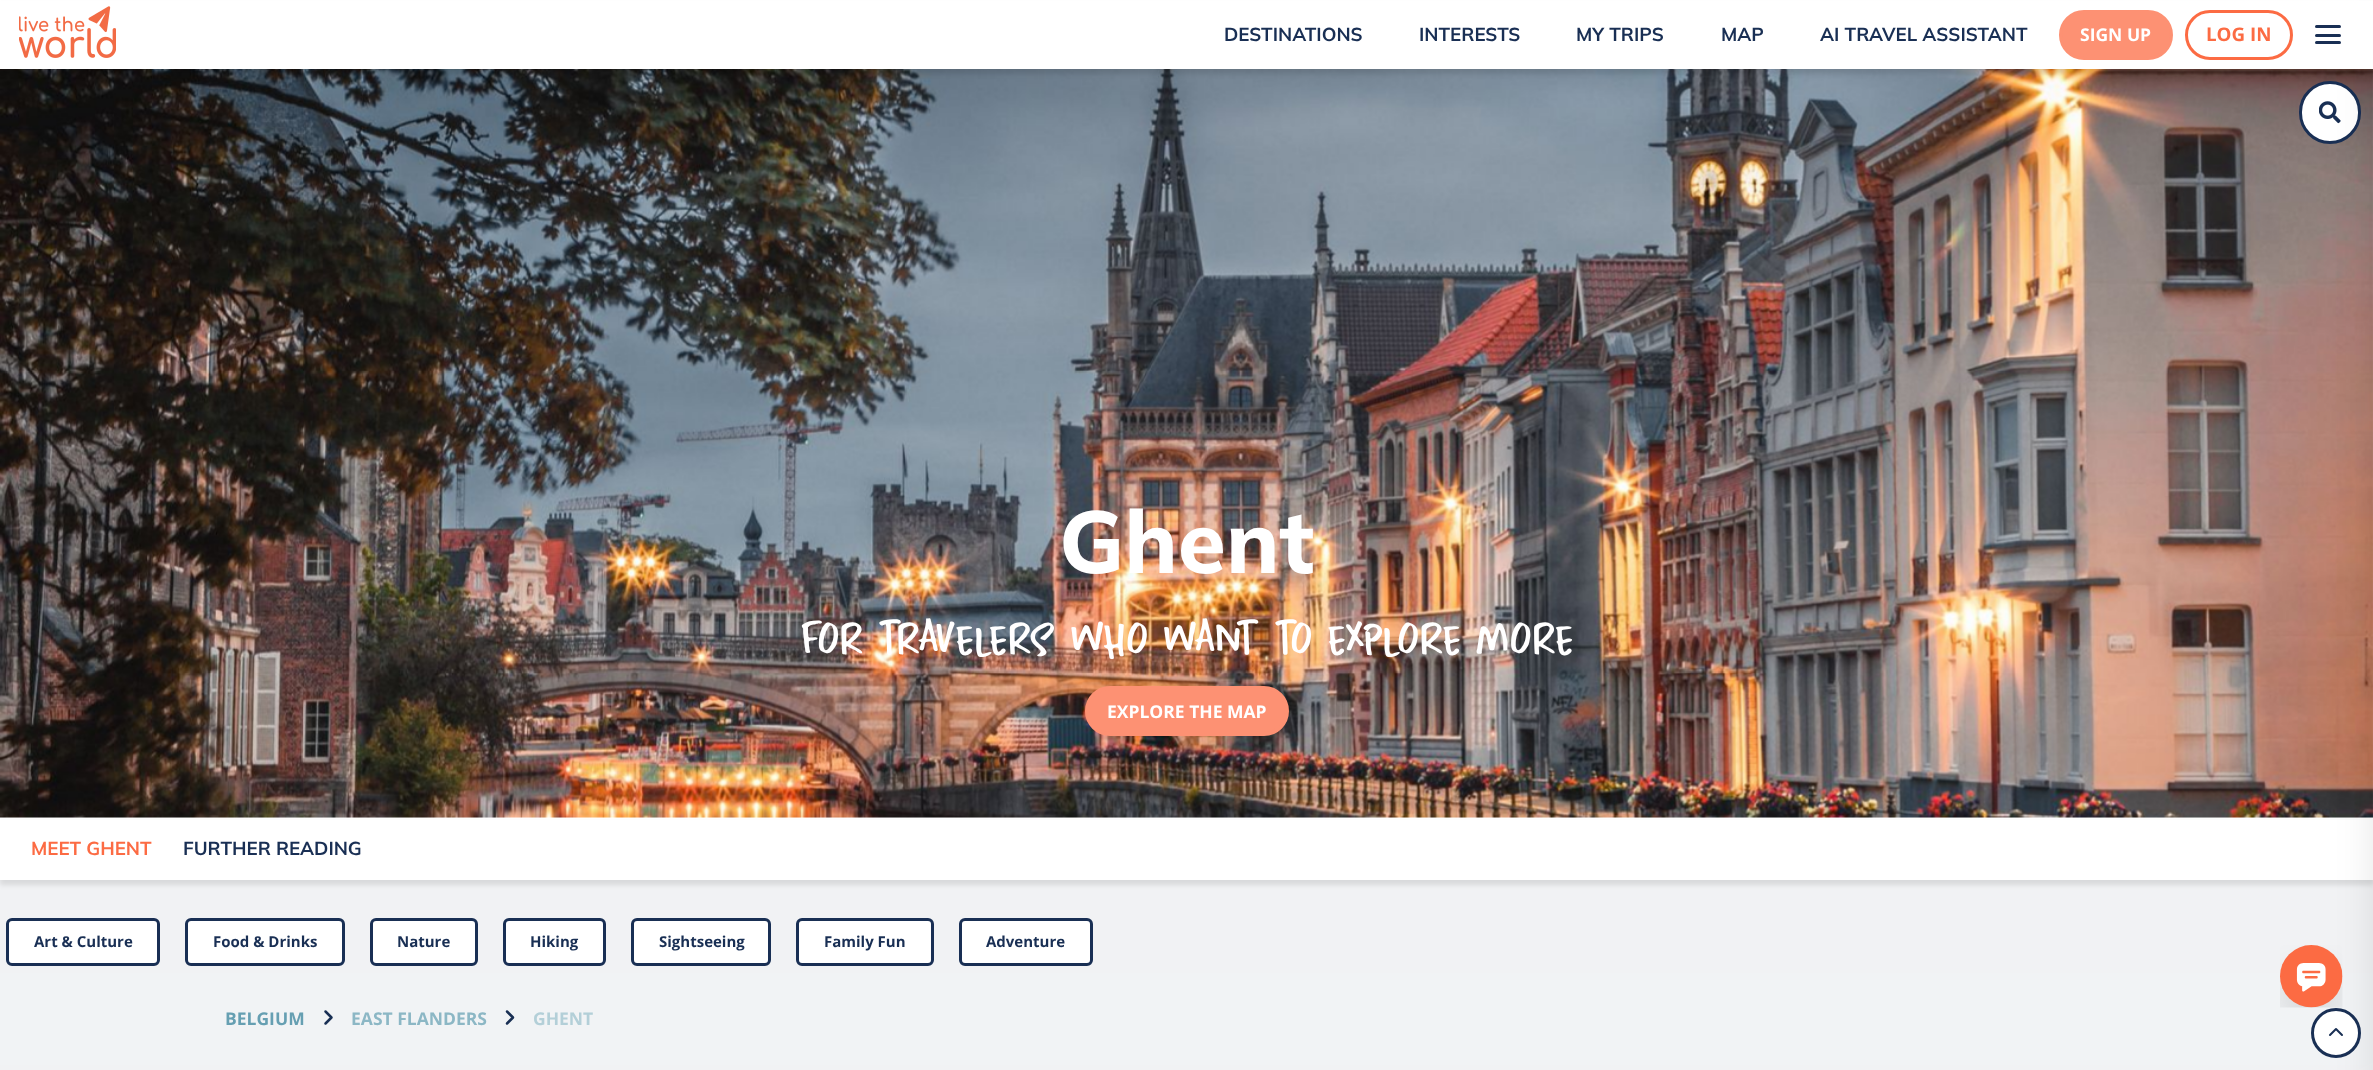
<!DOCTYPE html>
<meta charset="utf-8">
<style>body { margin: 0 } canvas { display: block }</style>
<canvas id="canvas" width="2373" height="1070"></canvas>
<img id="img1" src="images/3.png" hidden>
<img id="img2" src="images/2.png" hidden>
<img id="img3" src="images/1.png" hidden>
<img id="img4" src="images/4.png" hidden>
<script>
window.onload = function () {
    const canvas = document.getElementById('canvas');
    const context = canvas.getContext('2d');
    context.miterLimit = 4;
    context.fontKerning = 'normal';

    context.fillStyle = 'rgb(255, 255, 255)';
    context.fillRect(0, 0, 2373, 1070);
    context.drawImage(document.getElementById('img1'), 0, 69, 2373, 749);
    context.beginPath();
    context.roundRect(2300.5, 82.5, 59, 60, 29.5);
    context.fill();
    context.strokeStyle = 'rgb(25, 47, 84)';
    context.lineWidth = 3;
    context.stroke();
    context.fillStyle = 'rgba(0, 0, 0, 0.1)';
    context.filter = 'blur(2.5px)';
    context.beginPath();
    context.rect(0, 5, 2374, 69);
    context.fill();
    context.filter = 'none';
    context.drawImage(document.getElementById('img2'), 2319, 101, 22, 23);
    context.fillStyle = 'rgb(241, 242, 244)';
    context.fillRect(0, 880, 2373, 93);
    context.fillStyle = 'rgba(0, 0, 0, 0.1)';
    context.filter = 'blur(2.5px)';
    context.beginPath();
    context.rect(0, 823, 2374, 62);
    context.fill();
    context.filter = 'none';
    context.fillStyle = 'rgb(255, 255, 255)';
    context.fillRect(0, 820, 2373, 60);
    context.fillStyle = 'rgb(241, 243, 245)';
    context.fillRect(0, 973, 2373, 92);
    context.fillStyle = 'rgb(241, 242, 244)';
    context.fillRect(0, 1065, 2373, 5);
    context.fillStyle = 'rgba(0, 0, 0, 0.1)';
    context.filter = 'blur(19px)';
    context.beginPath();
    context.rect(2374, 25, 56, 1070);
    context.fill();
    context.filter = 'none';
    context.fillStyle = 'rgb(255, 255, 255)';
    context.fillRect(0, 1, 2373, 68);
    context.drawImage(document.getElementById('img3'), 19, 6, 97, 52);
    context.fillStyle = 'rgb(253, 145, 115)';
    context.beginPath();
    context.roundRect(2060.5, 11.5, 111, 47, 23.5);
    context.fill();
    context.strokeStyle = 'rgb(253, 145, 115)';
    context.stroke();
    context.beginPath();
    context.roundRect(2186.5, 11.5, 105, 47, 23.5);
    context.strokeStyle = 'rgb(252, 107, 67)';
    context.stroke();
    context.fillStyle = 'rgb(25, 47, 84)';
    context.beginPath();
    context.roundRect(2315, 25, 26, 3, 1.5);
    context.fill();
    context.beginPath();
    context.roundRect(2315, 34, 26, 3, 1.5);
    context.fill();
    context.beginPath();
    context.roundRect(2315, 41, 26, 3, 1.5);
    context.fill();
    context.fillStyle = 'rgb(253, 145, 115)';
    context.beginPath();
    context.roundRect(1087, 688, 200, 46, 23);
    context.fill();
    context.strokeStyle = 'rgb(253, 145, 115)';
    context.lineWidth = 4;
    context.stroke();
    context.fillStyle = 'rgb(255, 255, 255)';
    context.beginPath();
    context.roundRect(7.5, 919.5, 151, 45, 4.5);
    context.fill();
    context.strokeStyle = 'rgb(25, 47, 84)';
    context.lineWidth = 3;
    context.stroke();
    context.beginPath();
    context.roundRect(186.5, 919.5, 157, 45, 4.5);
    context.fill();
    context.stroke();
    context.beginPath();
    context.roundRect(371.5, 919.5, 105, 45, 4.5);
    context.fill();
    context.stroke();
    context.beginPath();
    context.roundRect(504.5, 919.5, 100, 45, 4.5);
    context.fill();
    context.stroke();
    context.beginPath();
    context.roundRect(632.5, 919.5, 137, 45, 4.5);
    context.fill();
    context.stroke();
    context.beginPath();
    context.roundRect(797.5, 919.5, 135, 45, 4.5);
    context.fill();
    context.stroke();
    context.beginPath();
    context.roundRect(960.5, 919.5, 131, 45, 4.5);
    context.fill();
    context.stroke();
    context.beginPath();
    context.moveTo(325.5, 1023.5);
    context.lineTo(331.5, 1017.5);
    context.lineTo(325.5, 1011.5);
    context.lineWidth = 2.5;
    context.lineCap = 'round';
    context.lineJoin = 'round';
    context.stroke();
    context.beginPath();
    context.moveTo(507, 1023.5);
    context.lineTo(513, 1017.5);
    context.lineTo(507, 1011.5);
    context.stroke();
    context.drawImage(document.getElementById('img4'), 2280, 945, 63, 63);
    context.beginPath();
    context.arc(2336, 1033, 23.5, 0, 2 * Math.PI);
    context.fill();
    context.lineWidth = 3;
    context.stroke();
    context.beginPath();
    context.moveTo(2342, 1035);
    context.lineTo(2336, 1029);
    context.lineTo(2330, 1035);
    context.lineWidth = 2;
    context.stroke();
    context.font = 'bold 18.75px Mulish';
    context.fillStyle = 'rgb(25, 47, 84)';
    context.fillText('DESTINATIONS', 1224, 41);
    context.fillText('INTERESTS', 1419, 41);
    context.fillText('MY TRIPS', 1576, 41);
    context.fillText('MAP', 1721, 41);
    context.fillText('AI TRAVEL ASSISTANT', 1820, 41);
    context.font = 'bold 17.5px Open Sans';
    context.fillStyle = 'rgb(255, 255, 255)';
    context.fillText('SIGN UP', 2080, 41);
    context.font = 'bold 18.75px Open Sans';
    context.fillStyle = 'rgb(252, 107, 67)';
    context.fillText('LOG IN', 2206, 41);
    context.font = '800 87.5px Mulish';
    context.fillStyle = 'rgb(255, 255, 255)';
    context.fillText('Ghent', 1059, 573);
    context.font = '61.25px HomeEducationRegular';
    context.fillText('For travelers who want to explore more', 800, 659);
    context.font = 'bold 17.5px Open Sans';
    context.fillText('EXPLORE THE MAP', 1107, 718);
    context.font = 'bold 18.75px Mulish';
    context.fillStyle = 'rgb(252, 107, 67)';
    context.fillText('MEET GHENT', 31, 855);
    context.fillStyle = 'rgb(25, 47, 84)';
    context.fillText('FURTHER READING', 183, 855);
    context.font = 'bold 15px Open Sans';
    context.fillText('Art & Culture', 34, 947);
    context.fillText('Food & Drinks', 213, 947);
    context.fillText('Nature', 397, 947);
    context.fillText('Hiking', 530, 947);
    context.fillText('Sightseeing', 659, 947);
    context.fillText('Family Fun', 824, 947);
    context.fillText('Adventure', 986, 947);
    context.font = 'bold 17.5px Open Sans';
    context.fillStyle = 'rgb(102, 159, 178)';
    context.fillText('BELGIUM', 225, 1025);
    context.fillStyle = 'rgb(140, 183, 197)';
    context.fillText('EAST FLANDERS', 351, 1025);
    context.fillStyle = 'rgb(179, 207, 216)';
    context.fillText('GHENT', 533, 1025);
};
</script>
